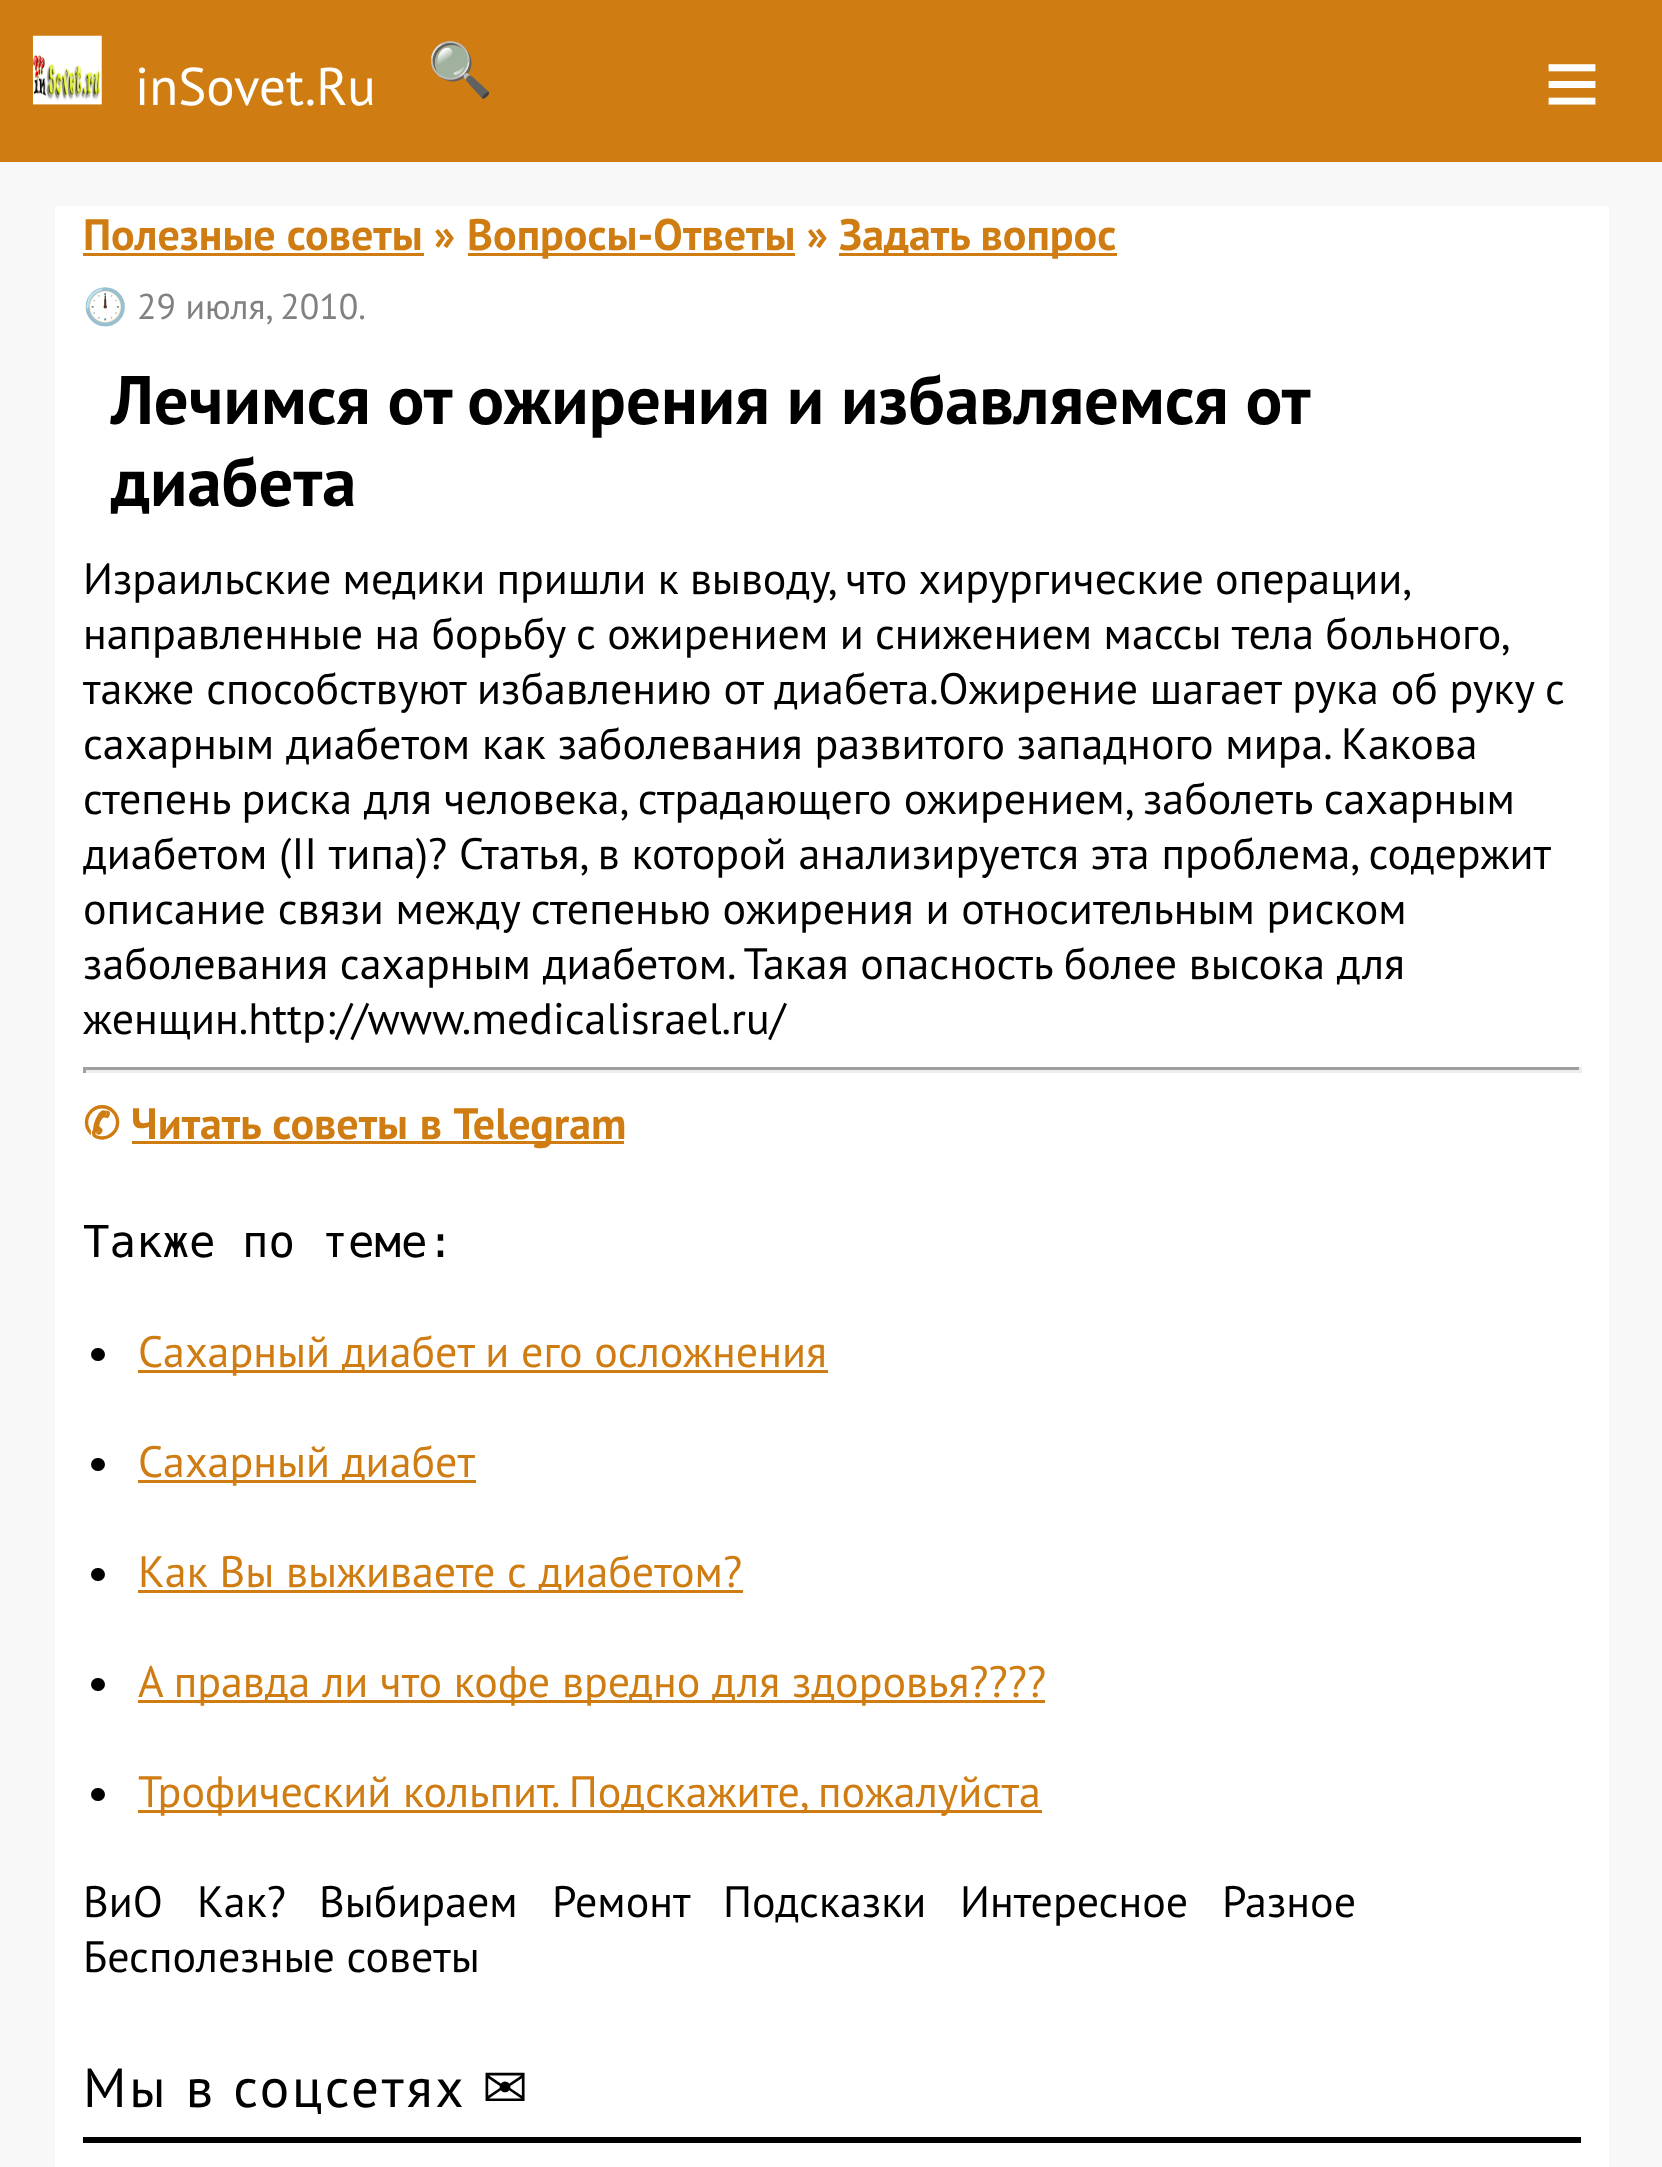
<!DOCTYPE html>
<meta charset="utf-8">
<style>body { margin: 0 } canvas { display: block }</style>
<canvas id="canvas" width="1662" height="2167"></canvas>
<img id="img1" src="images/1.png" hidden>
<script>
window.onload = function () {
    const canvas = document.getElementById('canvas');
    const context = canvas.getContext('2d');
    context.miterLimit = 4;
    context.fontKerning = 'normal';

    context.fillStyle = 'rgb(248, 248, 248)';
    context.fillRect(0, 0, 1662, 2167);
    context.fillStyle = 'rgb(207, 125, 19)';
    context.fillRect(0, 0, 1662, 162);
    context.drawImage(document.getElementById('img1'), 32, 35, 70, 70);
    context.fillStyle = 'rgb(255, 255, 255)';
    context.fillRect(55, 206, 1554, 1961);
    context.fillStyle = 'rgb(207, 125, 19)';
    context.fillRect(83, 253, 341, 3);
    context.fillRect(468, 253, 327, 3);
    context.fillRect(839, 253, 278, 3);
    context.fillStyle = 'rgb(159, 159, 159)';
    context.fillRect(83, 1067, 1498, 3);
    context.fillStyle = 'rgb(238, 238, 238)';
    context.fillRect(1579, 1067, 3, 6);
    context.fillRect(83, 1070, 1498, 3);
    context.fillStyle = 'rgb(159, 159, 159)';
    context.fillRect(83, 1067, 3, 6);
    context.fillStyle = 'rgb(207, 125, 19)';
    context.fillRect(132, 1141, 492, 3);
    context.fillStyle = 'rgb(0, 0, 0)';
    context.beginPath();
    context.roundRect(91, 1348, 14, 13, 6.5);
    context.fill();
    context.fillStyle = 'rgb(207, 125, 19)';
    context.fillRect(138, 1370, 690, 3);
    context.fillStyle = 'rgb(0, 0, 0)';
    context.beginPath();
    context.roundRect(91, 1458, 14, 13, 6.5);
    context.fill();
    context.fillStyle = 'rgb(207, 125, 19)';
    context.fillRect(138, 1480, 338, 3);
    context.fillStyle = 'rgb(0, 0, 0)';
    context.beginPath();
    context.roundRect(91, 1568, 14, 13, 6.5);
    context.fill();
    context.fillStyle = 'rgb(207, 125, 19)';
    context.fillRect(138, 1590, 605, 3);
    context.fillStyle = 'rgb(0, 0, 0)';
    context.beginPath();
    context.roundRect(91, 1678, 14, 13, 6.5);
    context.fill();
    context.fillStyle = 'rgb(207, 125, 19)';
    context.fillRect(138, 1700, 907, 3);
    context.fillStyle = 'rgb(0, 0, 0)';
    context.beginPath();
    context.roundRect(91, 1788, 14, 13, 6.5);
    context.fill();
    context.fillStyle = 'rgb(207, 125, 19)';
    context.fillRect(138, 1810, 904, 3);
    context.fillStyle = 'rgb(0, 0, 0)';
    context.fillRect(83, 2137, 1498, 6);
    context.font = '53px PT Sans';
    context.fillStyle = 'rgb(255, 255, 255)';
    context.fillText('inSovet.Ru', 135, 105);
    context.font = '53px Noto Color Emoji';
    context.fillText('🔍', 427, 88);
    context.font = '96px Liberation Sans';
    context.fillText('≡', 1544, 116);
    context.font = 'bold 44px PT Sans';
    context.fillStyle = 'rgb(207, 125, 19)';
    context.fillText('Полезные советы »', 83, 250);
    context.fillText('Вопросы-Ответы »', 467, 250);
    context.fillText('Задать вопрос', 839, 250);
    context.font = '35.75px Noto Color Emoji';
    context.fillStyle = 'rgb(129, 129, 129)';
    context.fillText('🕛', 83, 319);
    context.font = '35.75px PT Sans';
    context.fillText('29 июля, 2010.', 137, 319);
    context.wordSpacing = '-0.5px';
    context.font = 'bold 68.75px PT Sans';
    context.fillStyle = 'rgb(0, 0, 0)';
    context.fillText('Лечимся от ожирения и избавляемся от', 111, 424);
    context.wordSpacing = '0px';
    context.fillText('диабета', 111, 506);
    context.wordSpacing = '-0.5px';
    context.font = '44px PT Sans';
    context.fillText('Израильские медики пришли к выводу, что хирургические операции,', 83, 594);
    context.wordSpacing = '-0.4px';
    context.fillText('направленные на борьбу с ожирением и снижением массы тела больного,', 83, 649);
    context.wordSpacing = '0px';
    context.fillText('также способствуют избавлению от диабета.Ожирение шагает рука об руку с', 83, 704);
    context.fillText('сахарным диабетом как заболевания развитого западного мира. Какова', 83, 759);
    context.fillText('степень риска для человека, страдающего ожирением, заболеть сахарным', 83, 814);
    context.fillText('диабетом (II типа)? Статья, в которой анализируется эта проблема, содержит', 83, 869);
    context.fillText('описание связи между степенью ожирения и относительным риском', 83, 924);
    context.fillText('заболевания сахарным диабетом. Такая опасность более высока для', 83, 979);
    context.fillText('женщин.http://www.medicalisrael.ru/', 83, 1034);
    context.font = 'bold 44px DejaVu Sans';
    context.fillStyle = 'rgb(207, 125, 19)';
    context.fillText('✆', 83, 1139);
    context.wordSpacing = '0.5px';
    context.font = 'bold 44px PT Sans';
    context.fillText('Читать советы в Telegram', 131, 1139);
    context.wordSpacing = '0px';
    context.font = '44px DejaVu Sans Mono';
    context.fillStyle = 'rgb(0, 0, 0)';
    context.fillText('Также по теме:', 83, 1257);
    context.font = '44px PT Sans';
    context.fillStyle = 'rgb(207, 125, 19)';
    context.fillText('Сахарный диабет и его осложнения', 138, 1367);
    context.fillText('Сахарный диабет', 138, 1477);
    context.fillText('Как Вы выживаете с диабетом?', 138, 1587);
    context.fillText('А правда ли что кофе вредно для здоровья????', 138, 1697);
    context.fillText('Трофический кольпит. Подскажите, пожалуйста', 138, 1807);
    context.fillStyle = 'rgb(0, 0, 0)';
    context.fillText('ВиО', 83, 1917);
    context.fillText('Как?', 197, 1917);
    context.fillText('Выбираем', 319, 1917);
    context.fillText('Ремонт', 552, 1917);
    context.fillText('Подсказки', 723, 1917);
    context.fillText('Интересное', 960, 1917);
    context.fillText('Разное', 1222, 1917);
    context.fillText('Бесполезные советы', 83, 1972);
    context.letterSpacing = '2.75px';
    context.font = '55px PT Sans';
    context.fillText('Мы в соцсетях', 83, 2107);
    context.font = '55px DejaVu Sans';
    context.fillText('✉', 482, 2107);
};
</script>
